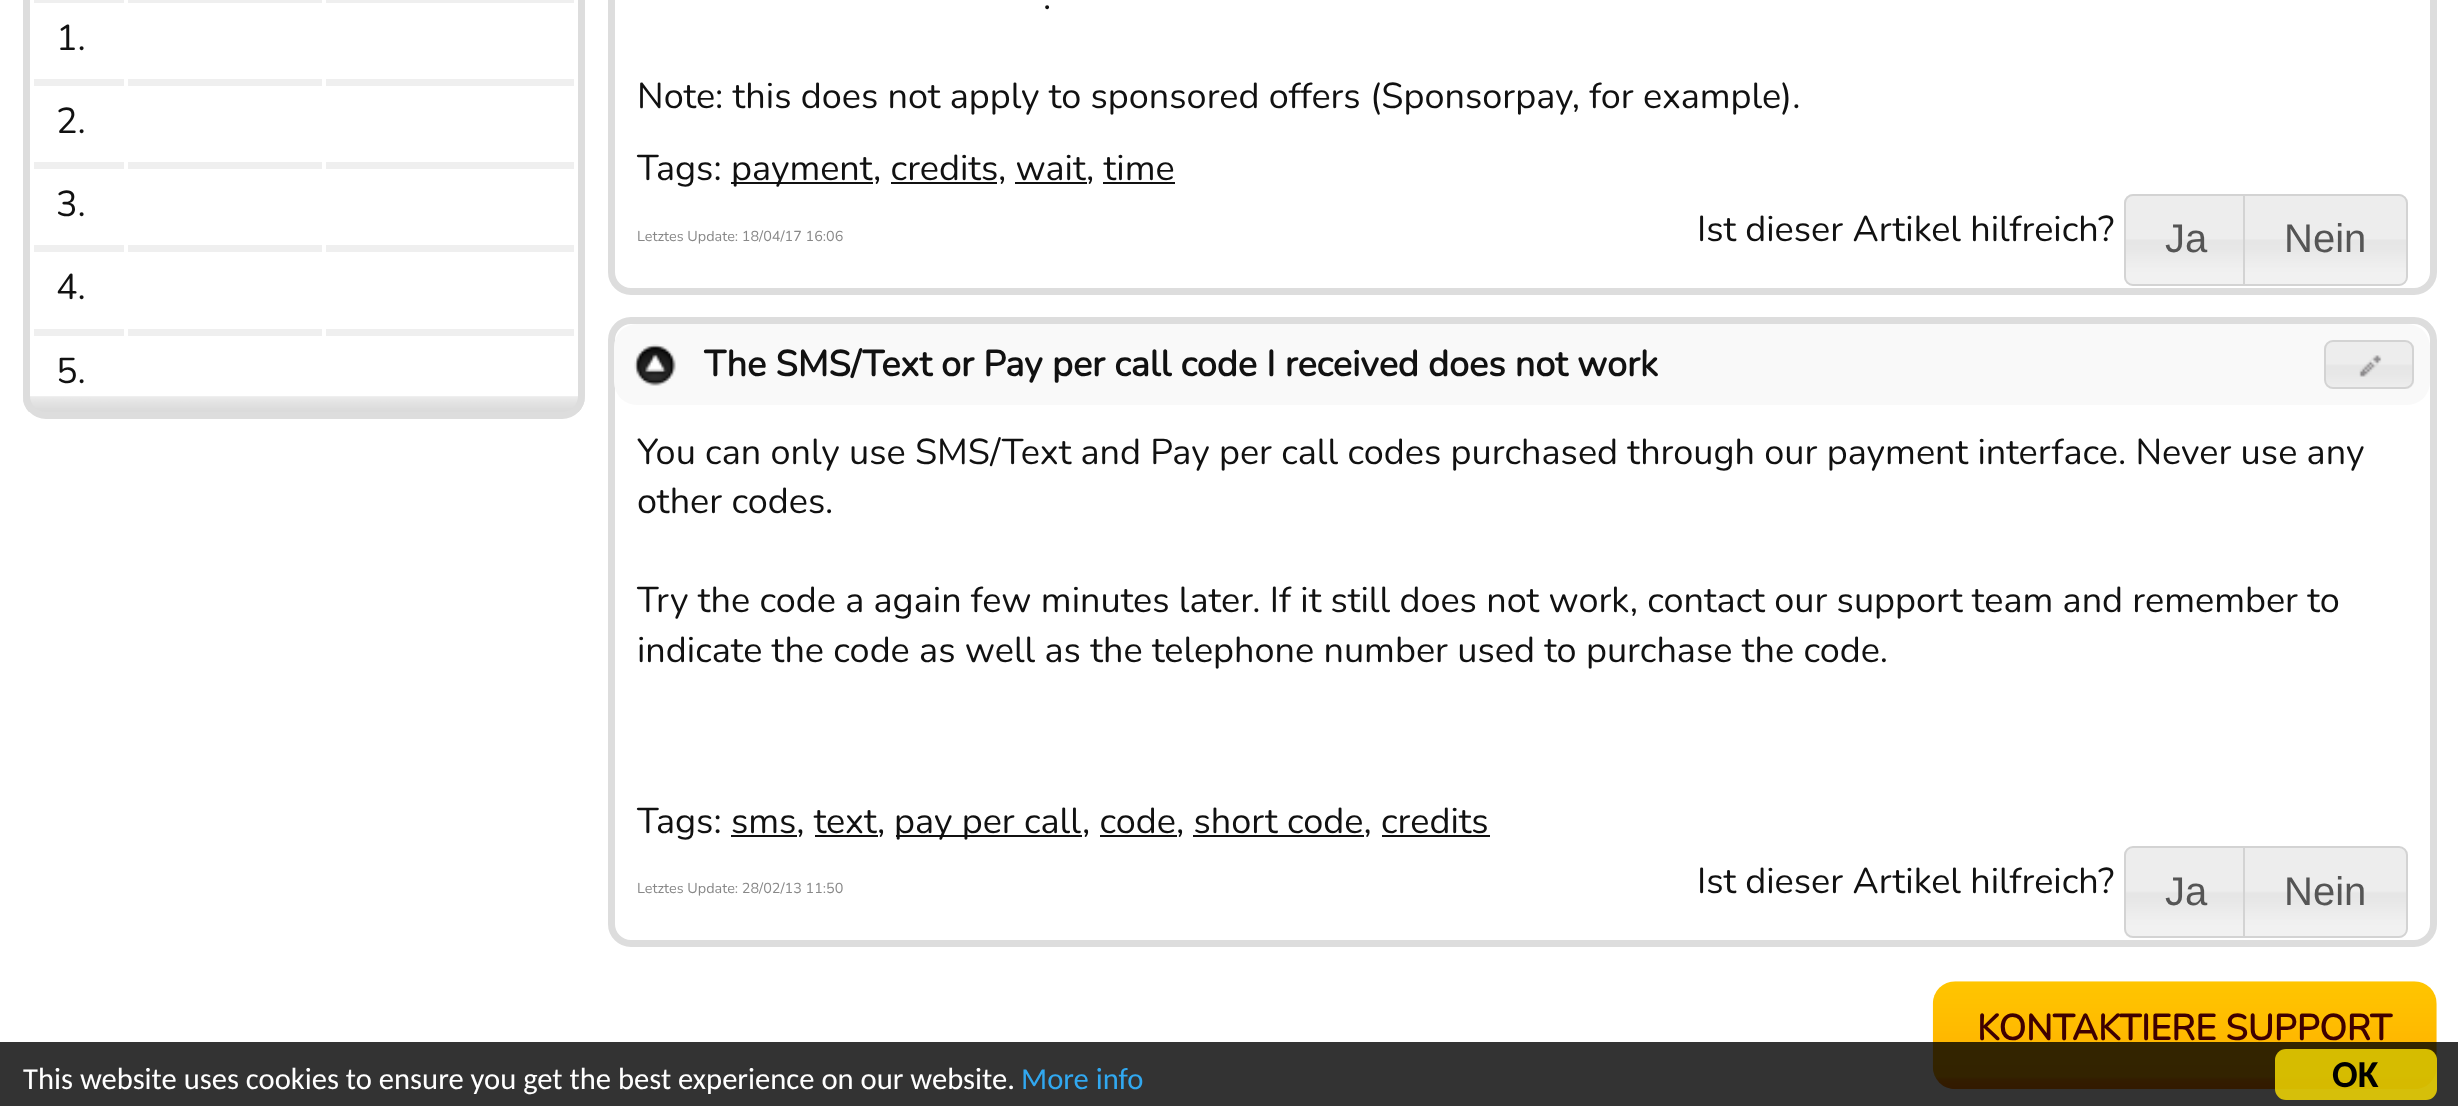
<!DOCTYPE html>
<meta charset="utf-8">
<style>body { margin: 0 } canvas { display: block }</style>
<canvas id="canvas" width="2458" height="1106"></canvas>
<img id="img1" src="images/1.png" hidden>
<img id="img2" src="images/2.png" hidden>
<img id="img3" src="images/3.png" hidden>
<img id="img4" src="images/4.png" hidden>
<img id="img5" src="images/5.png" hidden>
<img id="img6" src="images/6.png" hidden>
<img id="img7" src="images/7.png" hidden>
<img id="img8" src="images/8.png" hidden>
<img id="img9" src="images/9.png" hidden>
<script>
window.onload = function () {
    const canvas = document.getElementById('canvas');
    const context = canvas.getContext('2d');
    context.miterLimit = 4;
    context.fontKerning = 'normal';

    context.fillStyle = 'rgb(255, 255, 255)';
    context.fillRect(0, 0, 2458, 1106);
    context.drawImage(document.getElementById('img1'), 23, 396, 562, 16);
    context.beginPath();
    context.roundRect(26.5, -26.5, 555, 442, 19.5);
    context.strokeStyle = 'rgb(221, 221, 221)';
    context.lineWidth = 7;
    context.stroke();
    context.fillStyle = 'rgb(239, 239, 239)';
    context.fillRect(128, 0, 194, 3);
    context.fillRect(326, 0, 248, 3);
    context.fillRect(34, 0, 90, 3);
    context.fillRect(128, 79, 194, 7);
    context.fillRect(326, 79, 248, 7);
    context.fillRect(34, 79, 90, 7);
    context.fillRect(128, 162, 194, 7);
    context.fillRect(326, 162, 248, 7);
    context.fillRect(34, 162, 90, 7);
    context.fillRect(128, 245, 194, 7);
    context.fillRect(326, 245, 248, 7);
    context.fillRect(34, 245, 90, 7);
    context.fillRect(128, 329, 194, 7);
    context.fillRect(326, 329, 248, 7);
    context.fillRect(34, 329, 90, 7);
    context.beginPath();
    context.roundRect(611.5, -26.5, 1822, 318, 19.5);
    context.stroke();
    context.fillStyle = 'rgb(17, 17, 17)';
    context.fillRect(731, 182, 142, 2);
    context.fillRect(891, 182, 106, 2);
    context.fillRect(1015, 182, 72, 2);
    context.fillRect(1103, 182, 72, 2);
    context.drawImage(document.getElementById('img2'), 2124, 194, 119, 92);
    context.beginPath();
    context.roundRect(2125, 195, 124, 90, [8, 0, 0, 8]);
    context.strokeStyle = 'rgb(211, 211, 211)';
    context.lineWidth = 2;
    context.stroke();
    context.drawImage(document.getElementById('img3'), 2245, 194, 162, 92);
    context.beginPath();
    context.roundRect(2244, 195, 163, 90, [0, 8, 8, 0]);
    context.stroke();
    context.beginPath();
    context.roundRect(611.5, 320.5, 1822, 623, 19.5);
    context.strokeStyle = 'rgb(221, 221, 221)';
    context.lineWidth = 7;
    context.stroke();
    context.fillStyle = 'rgb(249, 249, 249)';
    context.beginPath();
    context.roundRect(614, 324, 1816, 81, 23);
    context.fill();
    context.drawImage(document.getElementById('img4'), 634, 344, 42, 42);
    context.drawImage(document.getElementById('img5'), 2325, 340, 89, 49);
    context.beginPath();
    context.roundRect(2325, 341, 88, 47, 8);
    context.strokeStyle = 'rgb(211, 211, 211)';
    context.lineWidth = 2;
    context.stroke();
    context.drawImage(document.getElementById('img6'), 2359, 355, 23, 22);
    context.fillStyle = 'rgb(17, 17, 17)';
    context.fillRect(731, 835, 66, 2);
    context.fillRect(815, 835, 63, 2);
    context.fillRect(896, 835, 186, 2);
    context.fillRect(1100, 835, 77, 2);
    context.fillRect(1193, 835, 171, 2);
    context.fillRect(1382, 835, 108, 2);
    context.drawImage(document.getElementById('img7'), 2124, 847, 119, 91);
    context.beginPath();
    context.roundRect(2125, 847, 124, 90, [8, 0, 0, 8]);
    context.stroke();
    context.drawImage(document.getElementById('img8'), 2245, 847, 162, 91);
    context.beginPath();
    context.roundRect(2244, 847, 163, 90, [0, 8, 8, 0]);
    context.stroke();
    context.drawImage(document.getElementById('img9'), 1932, 981, 505, 109);
    context.fillStyle = 'rgba(0, 0, 0, 0.8)';
    context.fillRect(0, 1042, 2458, 64);
    context.fillStyle = 'rgba(255, 226, 0, 0.8)';
    context.beginPath();
    context.roundRect(2275, 1049, 162, 51, 11);
    context.fill();
    context.font = '200 36px Nunito';
    context.fillStyle = 'rgb(17, 17, 17)';
    context.fillText('1.', 56, 50);
    context.fillText('2.', 56, 133);
    context.fillText('3.', 56, 216);
    context.fillText('4.', 56, 299);
    context.fillText('5.', 56, 383);
    context.fillText('.', 1043, 9);
    context.fillText('Note: this does not apply to sponsored offers (Sponsorpay, for example).', 637, 108);
    context.fillText('Tags:', 637, 180);
    context.fillText('payment', 731, 180);
    context.fillText(', credits, wait', 873, 180);
    context.fillText(', time', 1086, 180);
    context.font = '200 14.4px Nunito';
    context.fillStyle = 'rgb(136, 136, 136)';
    context.fillText('Letztes Update: 18/04/17 16:06', 637, 241);
    context.font = '200 36px Nunito';
    context.fillStyle = 'rgb(17, 17, 17)';
    context.fillText('Ist dieser Artikel hilfreich?', 1697, 241);
    context.font = '40px Liberation Sans';
    context.fillStyle = 'rgb(85, 85, 85)';
    context.fillText('Ja', 2165, 252);
    context.fillText('Nein', 2284, 252);
    context.font = 'bold 36px Nunito';
    context.fillStyle = 'rgb(17, 17, 17)';
    context.fillText('The SMS/Text or Pay per call code I received does not work', 704, 376);
    context.font = '200 36px Nunito';
    context.fillText('You can only use SMS/Text and Pay per call codes purchased through our payment interface. Never use any', 637, 464);
    context.fillText('other codes.', 637, 513);
    context.fillText('Try the code a again few minutes later. If it still does not work, contact our support team and remember to', 637, 612);
    context.fillText('indicate the code as well as the telephone number used to purchase the code.', 637, 662);
    context.fillText('Tags: sms, text', 637, 833);
    context.fillText(',', 877, 833);
    context.fillText('pay per call', 894, 833);
    context.fillText(', code, short code, credits', 1082, 833);
    context.font = '200 14.4px Nunito';
    context.fillStyle = 'rgb(136, 136, 136)';
    context.fillText('Letztes Update: 28/02/13 11:50', 637, 893);
    context.font = '200 36px Nunito';
    context.fillStyle = 'rgb(17, 17, 17)';
    context.fillText('Ist dieser Artikel hilfreich?', 1697, 893);
    context.font = '40px Liberation Sans';
    context.fillStyle = 'rgb(85, 85, 85)';
    context.fillText('Ja', 2165, 905);
    context.fillText('Nein', 2284, 905);
    context.font = 'bold 36px Nunito';
    context.fillStyle = 'rgb(63, 0, 0)';
    context.fillText('KONTAKTIERE SUPPORT', 1977, 1040);
    context.font = '30.6px Carlito';
    context.fillStyle = 'rgb(255, 255, 255)';
    context.fillText('This website uses cookies to ensure you get the best experience on our website.', 23, 1089);
    context.fillStyle = 'rgb(49, 168, 240)';
    context.fillText('More info', 1021, 1089);
    context.font = 'bold 38px Carlito';
    context.fillStyle = 'rgb(0, 0, 0)';
    context.fillText('OK', 2332, 1087);
};
</script>
